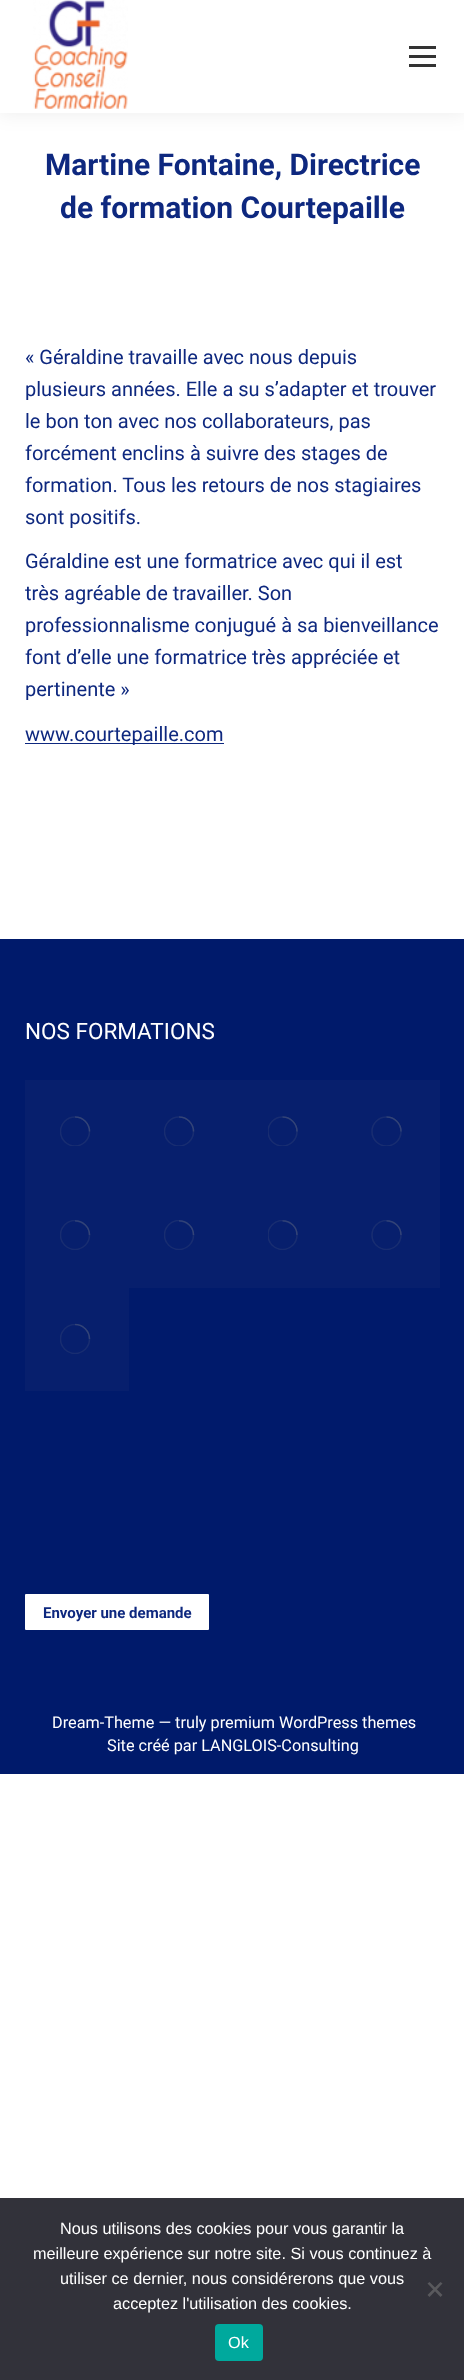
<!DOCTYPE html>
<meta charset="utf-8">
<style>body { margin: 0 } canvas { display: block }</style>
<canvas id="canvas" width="464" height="2380"></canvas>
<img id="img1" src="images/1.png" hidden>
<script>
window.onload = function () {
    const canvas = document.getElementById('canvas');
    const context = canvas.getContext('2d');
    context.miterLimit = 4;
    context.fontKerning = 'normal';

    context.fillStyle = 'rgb(255, 255, 255)';
    context.fillRect(0, 0, 464, 2380);
    context.fillStyle = 'rgba(0, 0, 0, 0.07)';
    context.filter = 'blur(9.5px)';
    context.beginPath();
    context.rect(-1, -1, 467, 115);
    context.fill();
    context.filter = 'none';
    context.fillStyle = 'rgb(255, 255, 255)';
    context.fillRect(0, 0, 464, 113);
    context.drawImage(document.getElementById('img1'), 33, 0, 95, 109);
    context.fillStyle = 'rgb(51, 51, 51)';
    context.fillRect(409, 46, 27, 3);
    context.fillRect(409, 55, 27, 3);
    context.fillRect(409, 64, 27, 3);
    context.fillStyle = 'rgb(14, 40, 127)';
    context.fillRect(25, 743, 199, 1);
    context.fillStyle = 'rgb(0, 26, 107)';
    context.fillRect(0, 939, 464, 835);
    context.fillStyle = 'rgb(7, 31, 109)';
    context.fillRect(25, 1080, 415, 104);
    context.save();
    context.beginPath();
    context.rect(60, 1116, 31, 30);
    context.clip();
    context.beginPath();
    context.arc(75, 1131.5, 14.5, 0, 2 * Math.PI);
    context.strokeStyle = 'rgb(24, 45, 113)';
    context.lineWidth = 1.6;
    context.stroke();
    context.restore();
    context.beginPath();
    context.moveTo(89.5, 1131.5);
    context.bezierCurveTo(89.5, 1123.5, 83, 1117, 75, 1117);
    context.strokeStyle = 'rgba(133, 134, 140, 0.25)';
    context.lineWidth = 1.6;
    context.stroke();
    context.save();
    context.beginPath();
    context.rect(164, 1116, 31, 30);
    context.clip();
    context.beginPath();
    context.arc(179, 1131.5, 14.5, 0, 2 * Math.PI);
    context.strokeStyle = 'rgb(24, 45, 113)';
    context.stroke();
    context.restore();
    context.beginPath();
    context.moveTo(193.5, 1131.5);
    context.bezierCurveTo(193.5, 1123.5, 187, 1117, 179, 1117);
    context.stroke();
    context.save();
    context.beginPath();
    context.rect(268, 1116, 31, 30);
    context.clip();
    context.beginPath();
    context.arc(282.5, 1131.5, 14.5, 0, 2 * Math.PI);
    context.strokeStyle = 'rgb(24, 45, 113)';
    context.stroke();
    context.restore();
    context.beginPath();
    context.moveTo(297, 1131.5);
    context.bezierCurveTo(297, 1123.5, 290.5, 1117, 282.5, 1117);
    context.stroke();
    context.save();
    context.beginPath();
    context.rect(371, 1116, 32, 30);
    context.clip();
    context.beginPath();
    context.arc(386.5, 1131.5, 14.5, 0, 2 * Math.PI);
    context.strokeStyle = 'rgb(24, 45, 113)';
    context.stroke();
    context.restore();
    context.beginPath();
    context.moveTo(401, 1131.5);
    context.bezierCurveTo(401, 1123.5, 394.5, 1117, 386.5, 1117);
    context.stroke();
    context.fillRect(25, 1184, 415, 104);
    context.save();
    context.beginPath();
    context.rect(60, 1220, 31, 30);
    context.clip();
    context.beginPath();
    context.arc(75, 1235, 14.5, 0, 2 * Math.PI);
    context.strokeStyle = 'rgb(24, 45, 113)';
    context.stroke();
    context.restore();
    context.beginPath();
    context.moveTo(89.5, 1235);
    context.bezierCurveTo(89.5, 1227, 83, 1221, 75, 1221);
    context.stroke();
    context.save();
    context.beginPath();
    context.rect(164, 1220, 31, 30);
    context.clip();
    context.beginPath();
    context.arc(179, 1235, 14.5, 0, 2 * Math.PI);
    context.strokeStyle = 'rgb(24, 45, 113)';
    context.stroke();
    context.restore();
    context.beginPath();
    context.moveTo(193.5, 1235);
    context.bezierCurveTo(193.5, 1227, 187, 1221, 179, 1221);
    context.stroke();
    context.save();
    context.beginPath();
    context.rect(268, 1220, 31, 30);
    context.clip();
    context.beginPath();
    context.arc(282.5, 1235, 14.5, 0, 2 * Math.PI);
    context.strokeStyle = 'rgb(24, 45, 113)';
    context.stroke();
    context.restore();
    context.beginPath();
    context.moveTo(297, 1235);
    context.bezierCurveTo(297, 1227, 290.5, 1221, 282.5, 1221);
    context.stroke();
    context.save();
    context.beginPath();
    context.rect(371, 1220, 32, 30);
    context.clip();
    context.beginPath();
    context.arc(386.5, 1235, 14.5, 0, 2 * Math.PI);
    context.strokeStyle = 'rgb(24, 45, 113)';
    context.stroke();
    context.restore();
    context.beginPath();
    context.moveTo(401, 1235);
    context.bezierCurveTo(401, 1227, 394.5, 1221, 386.5, 1221);
    context.stroke();
    context.fillRect(25, 1288, 104, 103);
    context.save();
    context.beginPath();
    context.rect(60, 1324, 31, 30);
    context.clip();
    context.beginPath();
    context.arc(75, 1339, 14.5, 0, 2 * Math.PI);
    context.strokeStyle = 'rgb(24, 45, 113)';
    context.stroke();
    context.restore();
    context.beginPath();
    context.moveTo(89.5, 1339);
    context.bezierCurveTo(89.5, 1331, 83, 1324.5, 75, 1324.5);
    context.stroke();
    context.fillStyle = 'rgb(255, 255, 255)';
    context.beginPath();
    context.roundRect(25, 1594, 184, 36, 1);
    context.fill();
    context.fillStyle = 'rgb(50, 50, 58)';
    context.fillRect(0, 2198, 464, 182);
    context.fillStyle = 'rgb(89, 89, 93)';
    context.beginPath();
    context.moveTo(440.5, 2282);
    context.lineTo(442.5, 2283.5);
    context.lineTo(429.5, 2297);
    context.lineTo(427.5, 2295);
    context.closePath();
    context.fill();
    context.beginPath();
    context.moveTo(427.5, 2283.5);
    context.lineTo(429.5, 2282);
    context.lineTo(442.5, 2295);
    context.lineTo(440.5, 2297);
    context.closePath();
    context.fill();
    context.fillStyle = 'rgb(0, 169, 157)';
    context.beginPath();
    context.roundRect(215, 2324, 48, 37, 4);
    context.fill();
    context.font = 'bold 30px Roboto';
    context.fillStyle = 'rgb(14, 40, 127)';
    context.fillText('Martine Fontaine, Directrice', 45, 175);
    context.fillText('de formation Courtepaille', 60, 218);
    context.font = '20px Roboto';
    context.fillText('« Géraldine travaille avec nous depuis', 25, 364);
    context.fillText('plusieurs années. Elle a su s’adapter et trouver', 25, 396);
    context.fillText('le bon ton avec nos collaborateurs, pas', 25, 428);
    context.fillText('forcément enclins à suivre des stages de', 25, 460);
    context.fillText('formation. Tous les retours de nos stagiaires', 25, 492);
    context.fillText('sont positifs.', 25, 524);
    context.fillText('Géraldine est une formatrice avec qui il est', 25, 568);
    context.fillText('très agréable de travailler. Son', 25, 600);
    context.fillText('professionnalisme conjugué à sa bienveillance', 25, 632);
    context.fillText('font d’elle une formatrice très appréciée et', 25, 664);
    context.fillText('pertinente »', 25, 696);
    context.fillText('www.courtepaille.com', 25, 741);
    context.font = '22.5px Roboto';
    context.fillStyle = 'rgb(255, 255, 255)';
    context.fillText('NOS FORMATIONS', 25, 1039);
    context.font = 'bold 15px Roboto';
    context.fillStyle = 'rgb(14, 40, 127)';
    context.fillText('Envoyer une demande', 43, 1618);
    context.font = '16.25px Roboto';
    context.fillStyle = 'rgb(255, 255, 255)';
    context.fillText('Dream-Theme — truly premium WordPress themes', 52, 1728);
    context.fillText('Site créé par LANGLOIS-Consulting', 107, 1751);
    context.font = '16.25px Liberation Sans';
    context.fillText('Nous utilisons des cookies pour vous garantir la', 60, 2234);
    context.fillText('meilleure expérience sur notre site. Si vous continuez à', 33, 2259);
    context.fillText('utiliser ce dernier, nous considérerons que vous', 60, 2284);
    context.fillText('acceptez l\'utilisation des cookies.', 113, 2309);
    context.fillText('Ok', 228, 2348);
};
</script>
